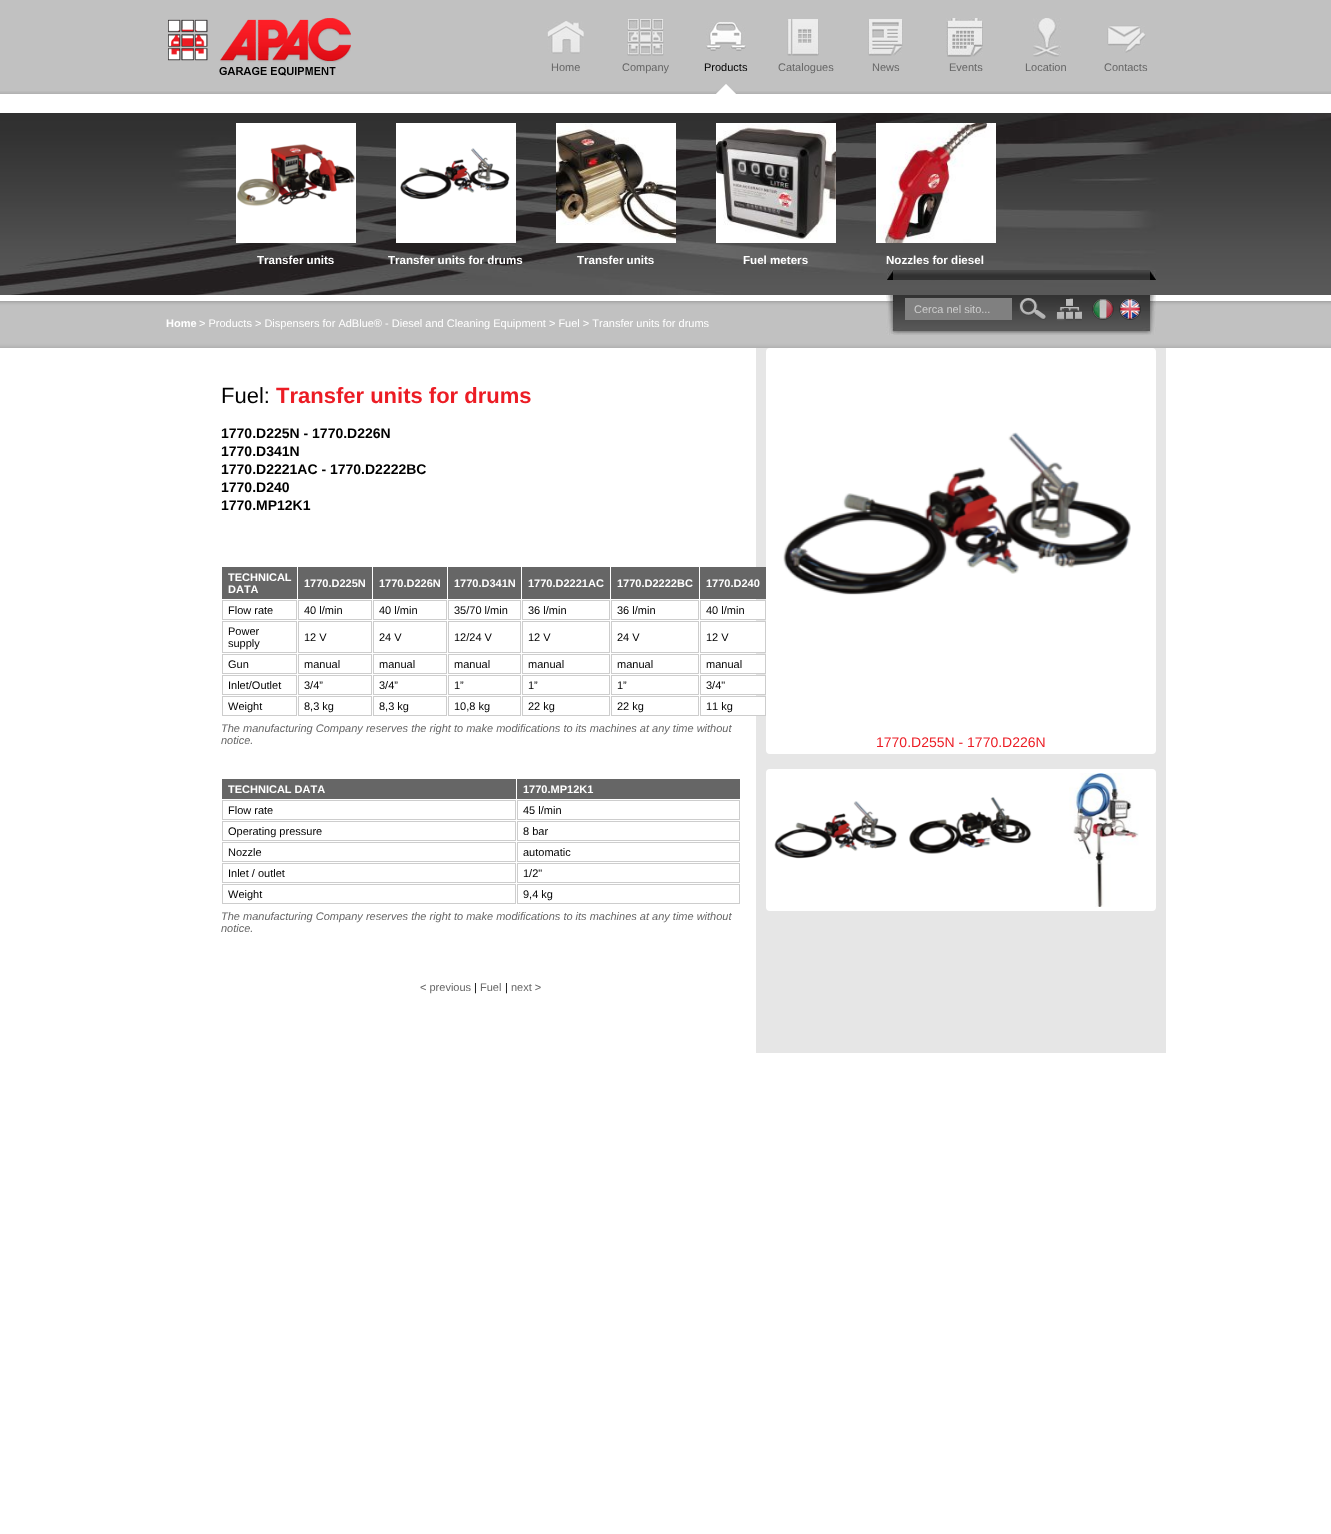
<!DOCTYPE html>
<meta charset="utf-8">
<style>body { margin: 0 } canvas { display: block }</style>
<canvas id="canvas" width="1331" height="1534"></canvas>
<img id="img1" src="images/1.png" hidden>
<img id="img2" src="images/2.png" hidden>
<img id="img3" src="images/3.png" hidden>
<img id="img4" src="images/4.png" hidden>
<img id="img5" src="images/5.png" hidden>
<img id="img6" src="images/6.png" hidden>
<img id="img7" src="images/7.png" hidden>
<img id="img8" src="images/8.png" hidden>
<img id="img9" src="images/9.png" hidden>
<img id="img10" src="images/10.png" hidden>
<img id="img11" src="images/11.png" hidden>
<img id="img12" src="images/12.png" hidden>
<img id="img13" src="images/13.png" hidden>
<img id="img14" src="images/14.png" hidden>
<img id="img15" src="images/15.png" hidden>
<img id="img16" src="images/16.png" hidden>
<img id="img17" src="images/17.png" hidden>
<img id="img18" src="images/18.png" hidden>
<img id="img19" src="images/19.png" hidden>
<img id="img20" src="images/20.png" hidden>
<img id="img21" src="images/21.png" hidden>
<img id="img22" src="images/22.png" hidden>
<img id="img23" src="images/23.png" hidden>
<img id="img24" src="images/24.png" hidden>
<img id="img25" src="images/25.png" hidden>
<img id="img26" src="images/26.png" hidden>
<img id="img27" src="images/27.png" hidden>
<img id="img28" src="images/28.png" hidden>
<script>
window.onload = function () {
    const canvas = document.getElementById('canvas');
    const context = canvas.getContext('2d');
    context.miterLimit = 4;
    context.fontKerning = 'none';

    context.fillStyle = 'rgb(255, 255, 255)';
    context.fillRect(0, 0, 1331, 1534);
    context.fillStyle = 'rgb(193, 193, 193)';
    context.fillRect(0, 0, 1331, 91);
    context.drawImage(document.getElementById('img1'), 0, 91, 1331, 8);
    context.drawImage(document.getElementById('img2'), 168, 18, 183, 58);
    context.drawImage(document.getElementById('img3'), 547, 21, 37, 33);
    context.drawImage(document.getElementById('img4'), 627, 19, 37, 37);
    context.drawImage(document.getElementById('img5'), 716, 84, 20, 10);
    context.drawImage(document.getElementById('img6'), 706, 22, 40, 29);
    context.drawImage(document.getElementById('img7'), 787, 19, 32, 37);
    context.drawImage(document.getElementById('img8'), 868, 19, 35, 37);
    context.drawImage(document.getElementById('img9'), 946, 18, 37, 39);
    context.drawImage(document.getElementById('img10'), 1033, 18, 28, 39);
    context.drawImage(document.getElementById('img11'), 1107, 25, 39, 28);
    context.drawImage(document.getElementById('img12'), 0, 113, 1331, 182);
    context.drawImage(document.getElementById('img13'), 236, 123, 120, 120);
    context.drawImage(document.getElementById('img14'), 396, 123, 120, 120);
    context.drawImage(document.getElementById('img15'), 556, 123, 120, 120);
    context.drawImage(document.getElementById('img16'), 716, 123, 120, 120);
    context.drawImage(document.getElementById('img17'), 876, 123, 120, 120);
    context.drawImage(document.getElementById('img18'), 887, 270, 269, 10);
    context.drawImage(document.getElementById('img19'), 0, 301, 1331, 47);
    context.drawImage(document.getElementById('img20'), 886, 295, 270, 40);
    context.fillStyle = 'rgb(128, 128, 128)';
    context.fillRect(905, 298, 107, 22);
    context.drawImage(document.getElementById('img21'), 1019, 298, 27, 22);
    context.drawImage(document.getElementById('img22'), 1056, 298, 26, 23);
    context.drawImage(document.getElementById('img23'), 1092, 299, 22, 21);
    context.drawImage(document.getElementById('img24'), 1119, 299, 22, 21);
    context.fillStyle = 'rgb(230, 230, 230)';
    context.fillRect(756, 348, 410, 705);
    context.fillStyle = 'rgb(102, 102, 102)';
    context.fillRect(222, 567, 75, 32);
    context.fillRect(298, 567, 74, 32);
    context.fillRect(373, 567, 74, 32);
    context.fillRect(448, 567, 73, 32);
    context.fillRect(522, 567, 88, 32);
    context.fillRect(611, 567, 88, 32);
    context.fillRect(700, 567, 66, 32);
    context.strokeStyle = 'rgb(205, 205, 205)';
    context.strokeRect(222.5, 600.5, 74, 19);
    context.strokeRect(298.5, 600.5, 73, 19);
    context.strokeRect(373.5, 600.5, 73, 19);
    context.strokeRect(448.5, 600.5, 72, 19);
    context.strokeRect(522.5, 600.5, 87, 19);
    context.strokeRect(611.5, 600.5, 87, 19);
    context.fillStyle = 'rgb(255, 255, 255)';
    context.fillRect(756, 601, 9, 18);
    context.strokeRect(700.5, 600.5, 65, 19);
    context.strokeRect(222.5, 621.5, 74, 31);
    context.strokeRect(298.5, 621.5, 73, 31);
    context.strokeRect(373.5, 621.5, 73, 31);
    context.strokeRect(448.5, 621.5, 72, 31);
    context.strokeRect(522.5, 621.5, 87, 31);
    context.strokeRect(611.5, 621.5, 87, 31);
    context.fillRect(756, 622, 9, 30);
    context.strokeRect(700.5, 621.5, 65, 31);
    context.strokeRect(222.5, 654.5, 74, 19);
    context.strokeRect(298.5, 654.5, 73, 19);
    context.strokeRect(373.5, 654.5, 73, 19);
    context.strokeRect(448.5, 654.5, 72, 19);
    context.strokeRect(522.5, 654.5, 87, 19);
    context.strokeRect(611.5, 654.5, 87, 19);
    context.fillRect(756, 655, 9, 18);
    context.strokeRect(700.5, 654.5, 65, 19);
    context.strokeRect(222.5, 675.5, 74, 19);
    context.strokeRect(298.5, 675.5, 73, 19);
    context.strokeRect(373.5, 675.5, 73, 19);
    context.strokeRect(448.5, 675.5, 72, 19);
    context.strokeRect(522.5, 675.5, 87, 19);
    context.strokeRect(611.5, 675.5, 87, 19);
    context.fillRect(756, 676, 9, 18);
    context.strokeRect(700.5, 675.5, 65, 19);
    context.strokeRect(222.5, 696.5, 74, 19);
    context.strokeRect(298.5, 696.5, 73, 19);
    context.strokeRect(373.5, 696.5, 73, 19);
    context.strokeRect(448.5, 696.5, 72, 19);
    context.strokeRect(522.5, 696.5, 87, 19);
    context.strokeRect(611.5, 696.5, 87, 19);
    context.fillRect(756, 697, 9, 18);
    context.strokeRect(700.5, 696.5, 65, 19);
    context.fillStyle = 'rgb(102, 102, 102)';
    context.fillRect(222, 779, 294, 20);
    context.fillRect(517, 779, 223, 20);
    context.strokeRect(222.5, 800.5, 293, 19);
    context.strokeRect(517.5, 800.5, 222, 19);
    context.strokeRect(222.5, 821.5, 293, 19);
    context.strokeRect(517.5, 821.5, 222, 19);
    context.strokeRect(222.5, 842.5, 293, 19);
    context.strokeRect(517.5, 842.5, 222, 19);
    context.strokeRect(222.5, 863.5, 293, 19);
    context.strokeRect(517.5, 863.5, 222, 19);
    context.strokeRect(222.5, 884.5, 293, 19);
    context.strokeRect(517.5, 884.5, 222, 19);
    context.fillStyle = 'rgb(255, 255, 255)';
    context.beginPath();
    context.roundRect(768, 350, 386, 402, 2);
    context.fill();
    context.strokeStyle = 'rgb(255, 255, 255)';
    context.lineWidth = 4;
    context.stroke();
    context.drawImage(document.getElementById('img25'), 783, 432, 348, 163);
    context.beginPath();
    context.roundRect(768, 771, 386, 138, 2);
    context.fill();
    context.stroke();
    context.drawImage(document.getElementById('img26'), 774, 801, 124, 58);
    context.drawImage(document.getElementById('img27'), 909, 797, 123, 57);
    context.drawImage(document.getElementById('img28'), 1069, 773, 70, 134);
    context.font = '11px Liberation Sans';
    context.fillStyle = 'rgb(102, 102, 102)';
    context.fillText('Home', 551, 71);
    context.fillText('Company', 622, 71);
    context.fillStyle = 'rgb(0, 0, 0)';
    context.fillText('Products', 704, 71);
    context.fillStyle = 'rgb(102, 102, 102)';
    context.fillText('Catalogues', 778, 71);
    context.fillText('News', 872, 71);
    context.fillText('Events', 949, 71);
    context.fillText('Location', 1025, 71);
    context.fillText('Contacts', 1104, 71);
    context.font = 'bold 11.6px Liberation Sans';
    context.fillStyle = 'rgb(255, 255, 255)';
    context.fillText('Transfer units', 257, 264);
    context.fillText('Transfer units for drums', 388, 264);
    context.fillText('Transfer units', 577, 264);
    context.fillText('Fuel meters', 743, 264);
    context.fillText('Nozzles for diesel', 886, 264);
    context.font = '11px Liberation Sans';
    context.fillStyle = 'rgb(205, 205, 205)';
    context.fillText('Cerca nel sito...', 914, 313);
    context.font = 'bold 11px Liberation Sans';
    context.fillStyle = 'rgb(255, 255, 255)';
    context.fillText('Home', 166, 327);
    context.font = '11px Liberation Sans';
    context.fillText('> Products > Dispensers for AdBlue® - Diesel and Cleaning Equipment > Fuel > Transfer units for drums', 199, 327);
    context.font = '22px Liberation Sans';
    context.fillStyle = 'rgb(0, 0, 0)';
    context.fillText('Fuel:', 221, 403);
    context.font = 'bold 22px Liberation Sans';
    context.fillStyle = 'rgb(236, 28, 36)';
    context.fillText('Transfer units for drums', 276, 403);
    context.font = 'bold 14px Liberation Sans';
    context.fillStyle = 'rgb(0, 0, 0)';
    context.fillText('1770.D225N - 1770.D226N', 221, 438);
    context.fillText('1770.D341N', 221, 456);
    context.fillText('1770.D2221AC - 1770.D2222BC', 221, 474);
    context.fillText('1770.D240', 221, 492);
    context.fillText('1770.MP12K1', 221, 510);
    context.font = 'bold 11px Liberation Sans';
    context.fillStyle = 'rgb(255, 255, 255)';
    context.fillText('TECHNICAL', 228, 581);
    context.fillText('DATA', 228, 593);
    context.fillText('1770.D225N', 304, 587);
    context.fillText('1770.D226N', 379, 587);
    context.fillText('1770.D341N', 454, 587);
    context.fillText('1770.D2221AC', 528, 587);
    context.fillText('1770.D2222BC', 617, 587);
    context.fillText('1770.D240', 706, 587);
    context.font = '11px Liberation Sans';
    context.fillStyle = 'rgb(0, 0, 0)';
    context.fillText('Flow rate', 228, 614);
    context.fillText('40 l/min', 304, 614);
    context.fillText('40 l/min', 379, 614);
    context.fillText('35/70 l/min', 454, 614);
    context.fillText('36 l/min', 528, 614);
    context.fillText('36 l/min', 617, 614);
    context.fillText('40 l/min', 706, 614);
    context.fillText('Power', 228, 635);
    context.fillText('supply', 228, 647);
    context.fillText('12 V', 304, 641);
    context.fillText('24 V', 379, 641);
    context.fillText('12/24 V', 454, 641);
    context.fillText('12 V', 528, 641);
    context.fillText('24 V', 617, 641);
    context.fillText('12 V', 706, 641);
    context.fillText('Gun', 228, 668);
    context.fillText('manual', 304, 668);
    context.fillText('manual', 379, 668);
    context.fillText('manual', 454, 668);
    context.fillText('manual', 528, 668);
    context.fillText('manual', 617, 668);
    context.fillText('manual', 706, 668);
    context.fillText('Inlet/Outlet', 228, 689);
    context.fillText('3/4”', 304, 689);
    context.fillText('3/4”', 379, 689);
    context.fillText('1”', 454, 689);
    context.fillText('1”', 528, 689);
    context.fillText('1”', 617, 689);
    context.fillText('3/4"', 706, 689);
    context.fillText('Weight', 228, 710);
    context.fillText('8,3 kg', 304, 710);
    context.fillText('8,3 kg', 379, 710);
    context.fillText('10,8 kg', 454, 710);
    context.fillText('22 kg', 528, 710);
    context.fillText('22 kg', 617, 710);
    context.fillText('11 kg', 706, 710);
    context.font = 'italic 11px Liberation Sans';
    context.fillStyle = 'rgb(102, 102, 102)';
    context.fillText('The manufacturing Company reserves the right to make modifications to its machines at any time without', 221, 732);
    context.fillText('notice.', 221, 744);
    context.font = 'bold 11px Liberation Sans';
    context.fillStyle = 'rgb(255, 255, 255)';
    context.fillText('TECHNICAL DATA', 228, 793);
    context.fillText('1770.MP12K1', 523, 793);
    context.font = '11px Liberation Sans';
    context.fillStyle = 'rgb(0, 0, 0)';
    context.fillText('Flow rate', 228, 814);
    context.fillText('45 l/min', 523, 814);
    context.fillText('Operating pressure', 228, 835);
    context.fillText('8 bar', 523, 835);
    context.fillText('Nozzle', 228, 856);
    context.fillText('automatic', 523, 856);
    context.fillText('Inlet / outlet', 228, 877);
    context.fillText('1/2"', 523, 877);
    context.fillText('Weight', 228, 898);
    context.fillText('9,4 kg', 523, 898);
    context.font = 'italic 11px Liberation Sans';
    context.fillStyle = 'rgb(102, 102, 102)';
    context.fillText('The manufacturing Company reserves the right to make modifications to its machines at any time without', 221, 920);
    context.fillText('notice.', 221, 932);
    context.font = '11px Liberation Sans';
    context.fillText('< previous', 420, 991);
    context.fillStyle = 'rgb(0, 0, 0)';
    context.fillText('|', 474, 991);
    context.fillStyle = 'rgb(102, 102, 102)';
    context.fillText('Fuel', 480, 991);
    context.fillStyle = 'rgb(0, 0, 0)';
    context.fillText('|', 505, 991);
    context.fillStyle = 'rgb(102, 102, 102)';
    context.fillText('next >', 511, 991);
    context.font = '14px Liberation Sans';
    context.fillStyle = 'rgb(236, 28, 36)';
    context.fillText('1770.D255N - 1770.D226N', 876, 747);
};
</script>
